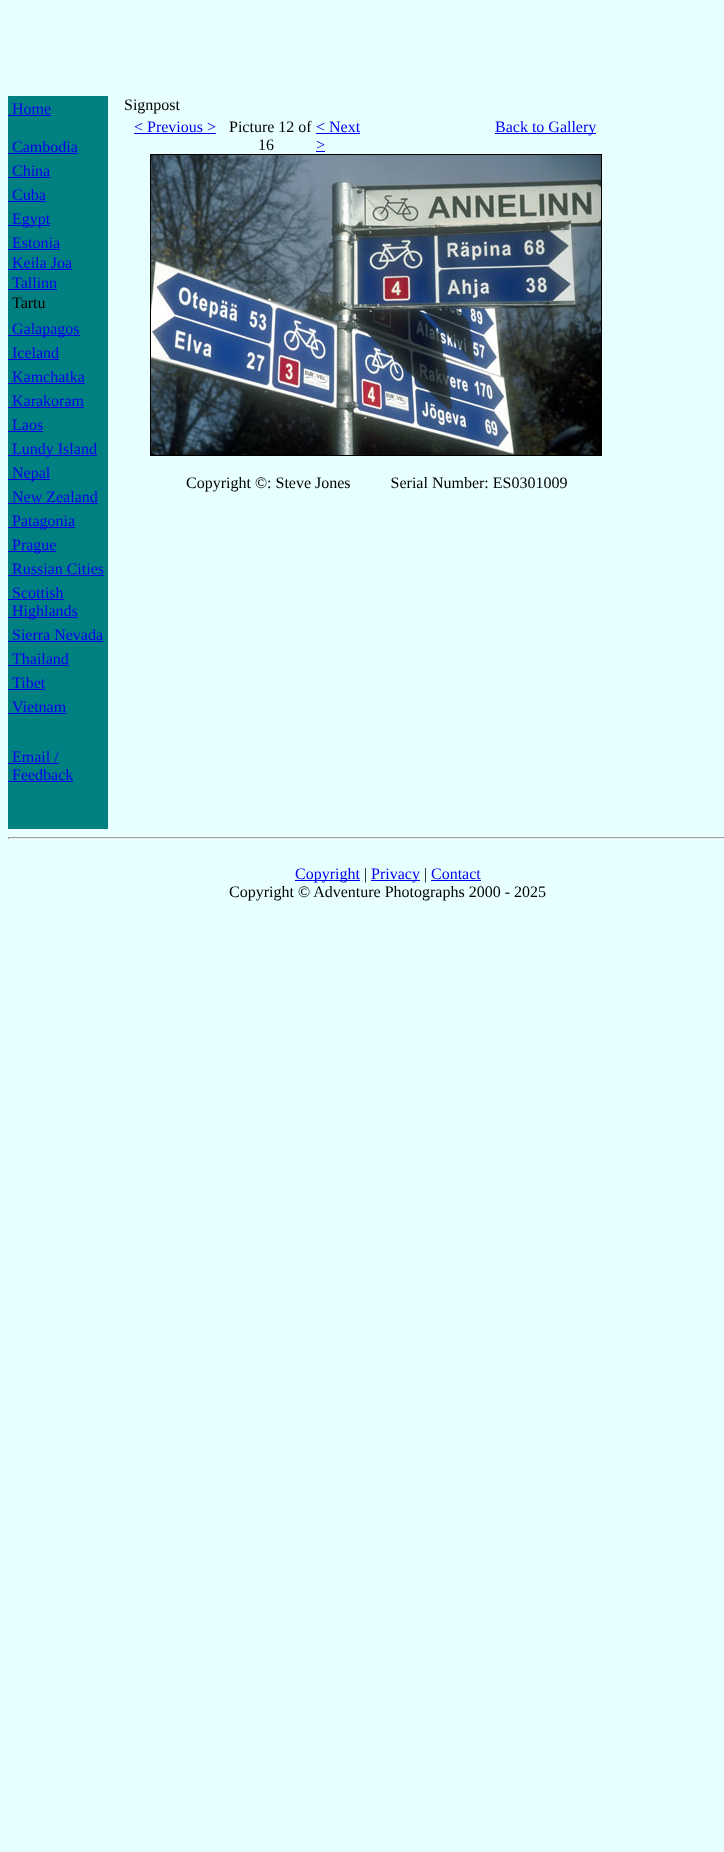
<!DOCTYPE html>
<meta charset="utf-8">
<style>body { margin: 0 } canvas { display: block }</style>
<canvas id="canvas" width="724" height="1852"></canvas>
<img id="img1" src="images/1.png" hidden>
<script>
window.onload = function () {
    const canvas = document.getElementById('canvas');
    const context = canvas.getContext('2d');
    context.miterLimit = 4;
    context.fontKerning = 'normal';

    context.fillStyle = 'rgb(231, 255, 255)';
    context.fillRect(0, 0, 724, 1852);
    context.fillStyle = 'rgb(0, 128, 128)';
    context.fillRect(8, 96, 100, 733);
    context.fillStyle = 'rgb(0, 0, 238)';
    context.fillRect(8, 115, 43, 1);
    context.fillRect(8, 153, 70, 1);
    context.fillRect(8, 177, 42, 1);
    context.fillRect(8, 201, 38, 1);
    context.fillRect(8, 225, 42, 1);
    context.fillRect(8, 249, 52, 1);
    context.fillRect(8, 269, 64, 1);
    context.fillRect(8, 289, 49, 1);
    context.fillRect(8, 335, 72, 1);
    context.fillRect(8, 359, 51, 1);
    context.fillRect(8, 383, 77, 1);
    context.fillRect(8, 407, 76, 1);
    context.fillRect(8, 431, 35, 1);
    context.fillRect(8, 455, 89, 1);
    context.fillRect(8, 479, 42, 1);
    context.fillRect(8, 503, 90, 1);
    context.fillRect(8, 527, 67, 1);
    context.fillRect(8, 551, 48, 1);
    context.fillRect(8, 575, 96, 1);
    context.fillRect(8, 599, 56, 1);
    context.fillRect(8, 617, 70, 1);
    context.fillRect(8, 641, 95, 1);
    context.fillRect(8, 665, 61, 1);
    context.fillRect(8, 689, 37, 1);
    context.fillRect(8, 713, 58, 1);
    context.fillRect(8, 763, 51, 1);
    context.fillRect(8, 781, 65, 1);
    context.fillRect(134, 133, 82, 1);
    context.fillRect(316, 133, 44, 1);
    context.fillRect(316, 151, 9, 1);
    context.fillRect(495, 133, 101, 1);
    context.strokeStyle = 'rgb(0, 0, 0)';
    context.strokeRect(150.5, 154.5, 451, 301);
    context.drawImage(document.getElementById('img1'), 151, 155, 450, 300);
    context.fillStyle = 'rgb(159, 159, 159)';
    context.fillRect(8, 837, 716, 1);
    context.fillStyle = 'rgb(238, 238, 238)';
    context.fillRect(8, 838, 716, 1);
    context.fillStyle = 'rgb(159, 159, 159)';
    context.fillRect(8, 837, 1, 2);
    context.fillStyle = 'rgb(0, 0, 238)';
    context.fillRect(295, 880, 65, 1);
    context.fillRect(371, 880, 49, 1);
    context.fillRect(431, 880, 50, 1);
    context.font = '16px Liberation Serif';
    context.fillText('Home', 12, 114);
    context.fillText('Cambodia', 12, 152);
    context.fillText('China', 12, 176);
    context.fillText('Cuba', 12, 200);
    context.fillText('Egypt', 12, 224);
    context.fillText('Estonia', 12, 248);
    context.fillText('Keila Joa', 12, 268);
    context.fillText('Tallinn', 12, 288);
    context.fillStyle = 'rgb(0, 0, 0)';
    context.fillText('Tartu', 12, 308);
    context.fillStyle = 'rgb(0, 0, 238)';
    context.fillText('Galapagos', 12, 334);
    context.fillText('Iceland', 12, 358);
    context.fillText('Kamchatka', 12, 382);
    context.fillText('Karakoram', 12, 406);
    context.fillText('Laos', 12, 430);
    context.fillText('Lundy Island', 12, 454);
    context.fillText('Nepal', 12, 478);
    context.fillText('New Zealand', 12, 502);
    context.fillText('Patagonia', 12, 526);
    context.fillText('Prague', 12, 550);
    context.fillText('Russian Cities', 12, 574);
    context.fillText('Scottish', 12, 598);
    context.fillText('Highlands', 12, 616);
    context.fillText('Sierra Nevada', 12, 640);
    context.fillText('Thailand', 12, 664);
    context.fillText('Tibet', 12, 688);
    context.fillText('Vietnam', 12, 712);
    context.fillText('Email /', 12, 762);
    context.fillText('Feedback', 12, 780);
    context.fillStyle = 'rgb(0, 0, 0)';
    context.fillText('Signpost', 124, 110);
    context.fillStyle = 'rgb(0, 0, 238)';
    context.fillText('< Previous >', 134, 132);
    context.fillStyle = 'rgb(0, 0, 0)';
    context.fillText('Picture 12 of', 229, 132);
    context.fillText('16', 258, 150);
    context.fillStyle = 'rgb(0, 0, 238)';
    context.fillText('< Next', 316, 132);
    context.fillText('>', 316, 150);
    context.fillText('Back to Gallery', 495, 132);
    context.fillStyle = 'rgb(0, 0, 0)';
    context.fillText('Copyright ©: Steve Jones          Serial Number: ES0301009', 186, 488);
    context.fillStyle = 'rgb(0, 0, 238)';
    context.fillText('Copyright', 295, 879);
    context.fillStyle = 'rgb(0, 0, 0)';
    context.fillText('|', 364, 879);
    context.fillStyle = 'rgb(0, 0, 238)';
    context.fillText('Privacy', 371, 879);
    context.fillStyle = 'rgb(0, 0, 0)';
    context.fillText('|', 424, 879);
    context.fillStyle = 'rgb(0, 0, 238)';
    context.fillText('Contact', 431, 879);
    context.fillStyle = 'rgb(0, 0, 0)';
    context.fillText('Copyright © Adventure Photographs 2000 - 2025', 229, 897);
};
</script>
